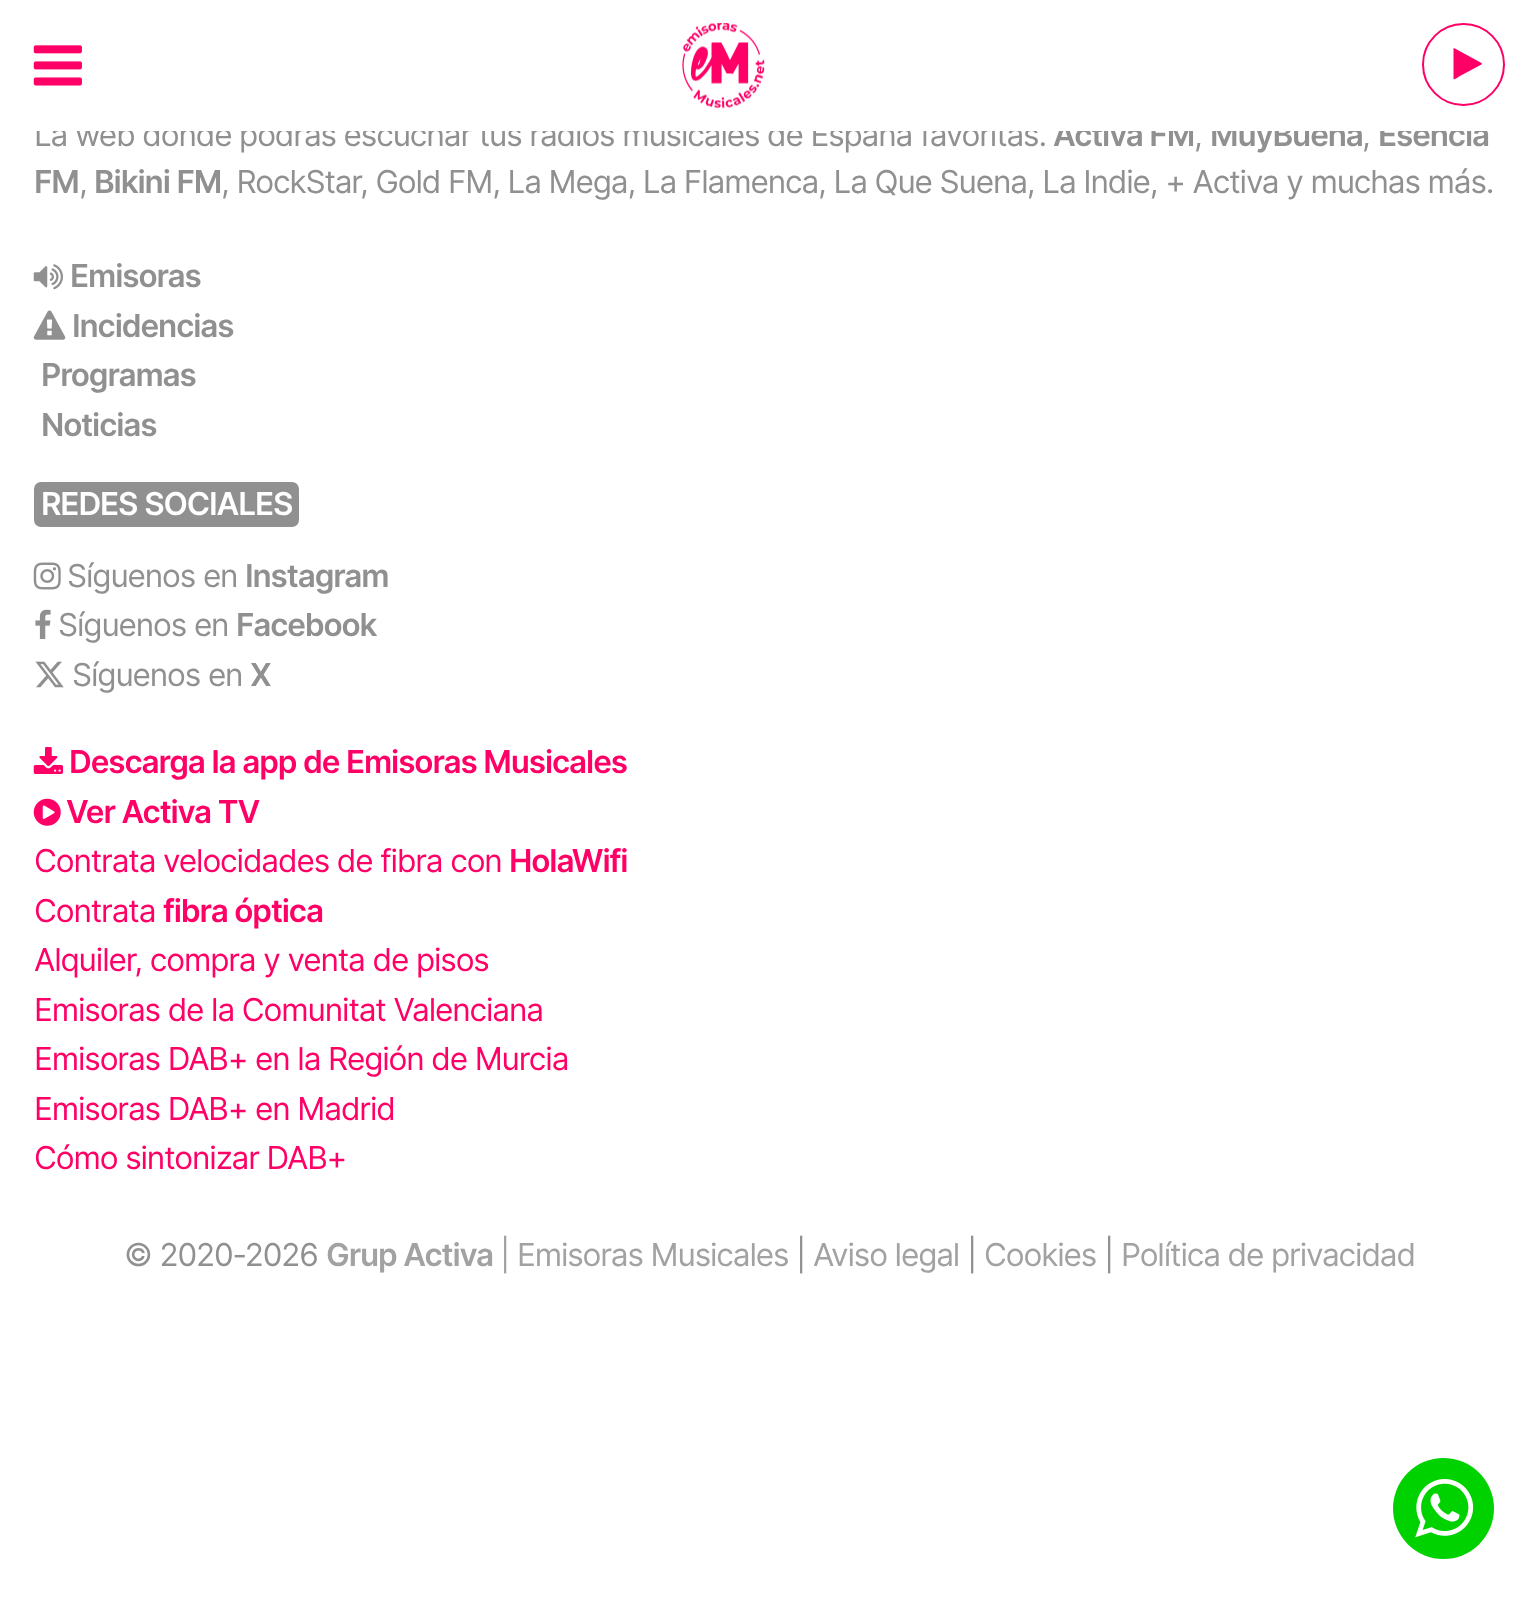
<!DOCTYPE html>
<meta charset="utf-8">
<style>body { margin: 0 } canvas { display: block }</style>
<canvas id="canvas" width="1538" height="1603"></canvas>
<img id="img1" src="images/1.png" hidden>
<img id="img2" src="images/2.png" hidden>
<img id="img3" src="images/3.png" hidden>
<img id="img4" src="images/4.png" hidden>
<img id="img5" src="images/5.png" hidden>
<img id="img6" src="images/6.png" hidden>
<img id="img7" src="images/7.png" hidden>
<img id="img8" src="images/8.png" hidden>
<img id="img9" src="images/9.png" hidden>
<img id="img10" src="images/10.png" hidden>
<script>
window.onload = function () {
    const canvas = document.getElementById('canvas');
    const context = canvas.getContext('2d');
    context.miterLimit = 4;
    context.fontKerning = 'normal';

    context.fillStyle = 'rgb(255, 255, 255)';
    context.fillRect(0, 0, 1538, 1603);
    context.drawImage(document.getElementById('img1'), 33, 45, 49, 41);
    context.drawImage(document.getElementById('img2'), 682, 23, 83, 86);
    context.beginPath();
    context.arc(1463.5, 64.5, 40.5, 0, 2 * Math.PI);
    context.strokeStyle = 'rgb(255, 0, 102)';
    context.lineWidth = 2;
    context.stroke();
    context.fillStyle = 'rgb(255, 0, 102)';
    context.beginPath();
    context.moveTo(1481.5, 64.5);
    context.lineTo(1459, 76.5);
    context.bezierCurveTo(1458.5, 77, 1454.5, 80, 1453.5, 79);
    context.lineTo(1453.5, 48.5);
    context.lineTo(1454, 48);
    context.lineTo(1481.5, 63);
    context.lineTo(1482, 63.5);
    context.closePath();
    context.fill();
    context.drawImage(document.getElementById('img3'), 33, 264, 30, 26);
    context.drawImage(document.getElementById('img4'), 33, 310, 33, 30);
    context.fillStyle = 'rgb(144, 144, 144)';
    context.beginPath();
    context.roundRect(34, 482, 265, 45, 7);
    context.fill();
    context.drawImage(document.getElementById('img5'), 33, 562, 28, 28);
    context.drawImage(document.getElementById('img6'), 35, 609, 16, 30);
    context.drawImage(document.getElementById('img7'), 35, 661, 29, 27);
    context.drawImage(document.getElementById('img8'), 33, 747, 30, 27);
    context.drawImage(document.getElementById('img9'), 33, 798, 28, 28);
    context.fillStyle = 'rgb(0, 210, 0)';
    context.beginPath();
    context.arc(1443.5, 1508.5, 50.5, 0, 2 * Math.PI);
    context.fill();
    context.drawImage(document.getElementById('img10'), 1415, 1479, 59, 59);
    context.letterSpacing = '-1.12px';
    context.font = '31.5px Inter';
    context.fillStyle = 'rgb(144, 144, 144)';
    context.fillText('La web donde podrás escuchar tus radios musicales de España favoritas.', 34, 146);
    context.font = '600 31.5px Inter';
    context.fillText('Activa FM', 1053, 146);
    context.font = '31.5px Inter';
    context.fillText(',', 1194, 146);
    context.font = '600 31.5px Inter';
    context.fillText('MuyBuena', 1210, 146);
    context.font = '31.5px Inter';
    context.fillText(',', 1362, 146);
    context.font = '600 31.5px Inter';
    context.fillText('Esencia', 1378, 146);
    context.fillStyle = 'rgb(255, 255, 255)';
    context.fillRect(36, 121, 1451, 10);
    context.fillStyle = 'rgb(144, 144, 144)';
    context.fillText('FM', 34, 193);
    context.fillText('Bikini FM', 94, 193);
    context.font = '31.5px Inter';
    context.fillText(', RockStar, Gold FM, La Mega, La Flamenca, La Que Suena, La Indie, + Activa y muchas más.', 221, 193);
    context.fillText(',', 79, 193);
    context.font = '600 31.5px Inter';
    context.fillText('Emisoras', 70, 287);
    context.fillText('Incidencias', 72, 337);
    context.fillText('Programas', 41, 386);
    context.fillText('Noticias', 41, 436);
    context.fillStyle = 'rgb(255, 255, 255)';
    context.fillText('REDES SOCIALES', 41, 515);
    context.font = '31.5px Inter';
    context.fillStyle = 'rgb(144, 144, 144)';
    context.fillText('Síguenos en', 67, 587);
    context.font = '600 31.5px Inter';
    context.fillText('Instagram', 245, 587);
    context.font = '31.5px Inter';
    context.fillText('Síguenos en', 58, 636);
    context.font = '600 31.5px Inter';
    context.fillText('Facebook', 236, 636);
    context.font = '31.5px Inter';
    context.fillText('Síguenos en', 72, 686);
    context.font = '600 31.5px Inter';
    context.fillText('X', 250, 686);
    context.fillStyle = 'rgb(255, 0, 102)';
    context.fillText('Descarga la app de Emisoras Musicales', 69, 773);
    context.fillText('Ver Activa TV', 66, 823);
    context.font = '31.5px Inter';
    context.fillText('Contrata velocidades de fibra con', 34, 872);
    context.font = '600 31.5px Inter';
    context.fillText('HolaWifi', 509, 872);
    context.font = '31.5px Inter';
    context.fillText('Contrata', 34, 922);
    context.font = '600 31.5px Inter';
    context.fillText('fibra óptica', 163, 922);
    context.font = '31.5px Inter';
    context.fillText('Alquiler, compra y venta de pisos', 34, 971);
    context.fillText('Emisoras de la Comunitat Valenciana', 34, 1021);
    context.fillText('Emisoras DAB+ en la Región de Murcia', 34, 1070);
    context.fillText('Emisoras DAB+ en Madrid', 34, 1120);
    context.fillText('Cómo sintonizar DAB+', 34, 1169);
    context.fillStyle = 'rgb(144, 144, 144)';
    context.fillText('© 2020-2026', 124, 1266);
    context.font = '600 31.5px Inter';
    context.fillStyle = 'rgb(162, 162, 162)';
    context.fillText('Grup Activa', 326, 1266);
    context.font = '31.5px Inter';
    context.fillText('| Emisoras Musicales', 500, 1266);
    context.fillStyle = 'rgb(144, 144, 144)';
    context.fillText('|', 796, 1266);
    context.fillStyle = 'rgb(162, 162, 162)';
    context.fillText('Aviso legal', 813, 1266);
    context.fillStyle = 'rgb(144, 144, 144)';
    context.fillText('|', 967, 1266);
    context.fillStyle = 'rgb(162, 162, 162)';
    context.fillText('Cookies', 984, 1266);
    context.fillStyle = 'rgb(144, 144, 144)';
    context.fillText('|', 1104, 1266);
    context.fillStyle = 'rgb(162, 162, 162)';
    context.fillText('Política de privacidad', 1121, 1266);
};
</script>
